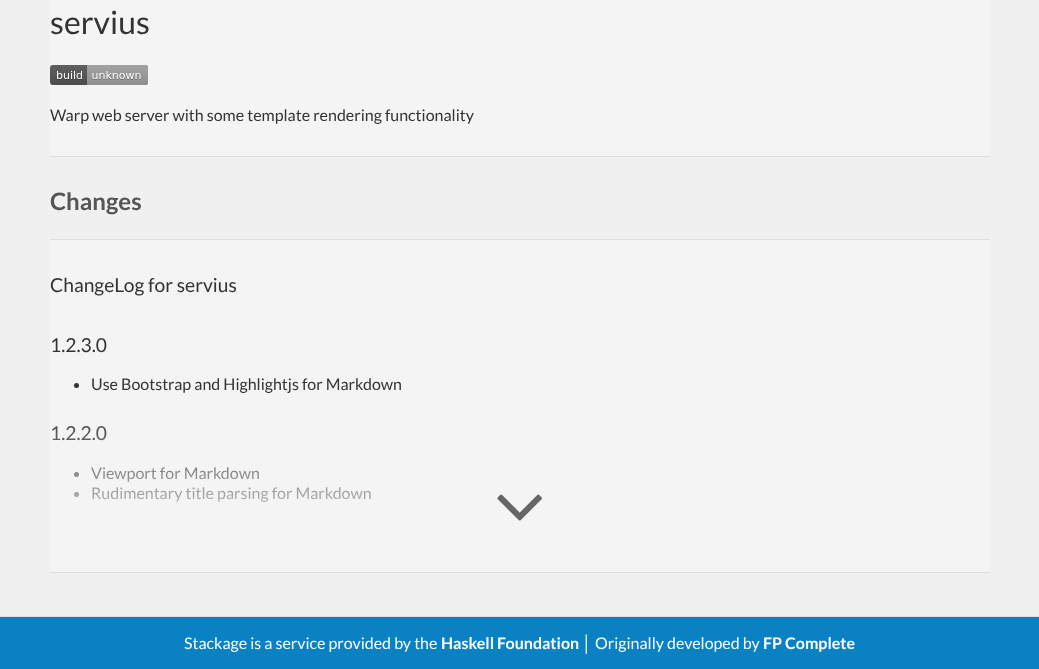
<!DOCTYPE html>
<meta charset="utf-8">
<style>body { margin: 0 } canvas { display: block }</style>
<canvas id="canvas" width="1039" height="669"></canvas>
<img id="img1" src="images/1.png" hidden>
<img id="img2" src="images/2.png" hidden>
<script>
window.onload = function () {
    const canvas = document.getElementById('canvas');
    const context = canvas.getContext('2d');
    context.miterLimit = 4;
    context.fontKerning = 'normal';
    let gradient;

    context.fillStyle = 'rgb(240, 240, 240)';
    context.fillRect(0, 0, 1039, 669);
    context.fillStyle = 'rgb(244, 244, 244)';
    context.fillRect(50, 0, 940, 156);
    context.fillStyle = 'rgb(221, 221, 221)';
    context.fillRect(50, 156, 940, 1);
    context.drawImage(document.getElementById('img1'), 50, 65, 98, 20);
    context.fillStyle = 'rgb(244, 244, 244)';
    context.fillRect(50, 240, 940, 332);
    context.fillStyle = 'rgb(221, 221, 221)';
    context.fillRect(50, 239, 940, 1);
    context.fillRect(50, 572, 940, 1);
    context.fillStyle = 'rgb(51, 51, 51)';
    context.beginPath();
    context.arc(76.5, 385.5, 2.5, 0, 2 * Math.PI);
    context.fill();
    context.drawImage(document.getElementById('img2'), 497, 494, 45, 27);
    context.beginPath();
    context.arc(76.5, 474.5, 2.5, 0, 2 * Math.PI);
    context.fill();
    context.beginPath();
    context.arc(76.5, 494.5, 2.5, 0, 2 * Math.PI);
    context.fill();
    context.fillStyle = 'rgb(9, 129, 195)';
    context.fillRect(0, 617, 1039, 52);
    context.fillStyle = 'rgb(221, 221, 221)';
    context.fillRect(0, 616, 1039, 1);
    context.font = '32px Lato';
    context.fillStyle = 'rgb(51, 51, 51)';
    context.fillText('servius', 50, 34);
    context.font = '16px Lato';
    context.fillText('Warp web server with some template rendering functionality', 50, 121);
    context.font = 'bold 24px Lato';
    context.fillStyle = 'rgb(85, 85, 85)';
    context.fillText('Changes', 50, 210);
    context.font = '19.25px Lato';
    context.fillStyle = 'rgb(51, 51, 51)';
    context.fillText('ChangeLog for servius', 50, 292);
    context.fillText('1.2.3.0', 50, 352);
    context.font = '16px Lato';
    context.fillText('Use Bootstrap and Highlightjs for Markdown', 91, 390);
    context.font = '19.25px Lato';
    context.fillText('1.2.2.0', 50, 440);
    context.font = '16px Lato';
    context.fillText('Viewport for Markdown', 91, 479);
    context.fillText('Rudimentary title parsing for Markdown', 91, 499);
    gradient = context.createLinearGradient(520, 406, 520, 556);
    gradient.addColorStop(0, 'rgba(244, 244, 244, 0)');
    gradient.addColorStop(1, 'rgb(244, 244, 244)');
    context.fillStyle = gradient;
    context.fillRect(51, 426, 320, 76);
    context.fillStyle = 'rgb(255, 255, 255)';
    context.fillText('Stackage is a service provided by the', 184, 649);
    context.font = 'bold 16px Lato';
    context.fillText('Haskell Foundation', 441, 649);
    context.font = '16px Liberation Sans';
    context.fillText('│', 582, 649);
    context.font = '16px Lato';
    context.fillText('Originally developed by', 595, 649);
    context.font = 'bold 16px Lato';
    context.fillText('FP Complete', 763, 649);
};
</script>
